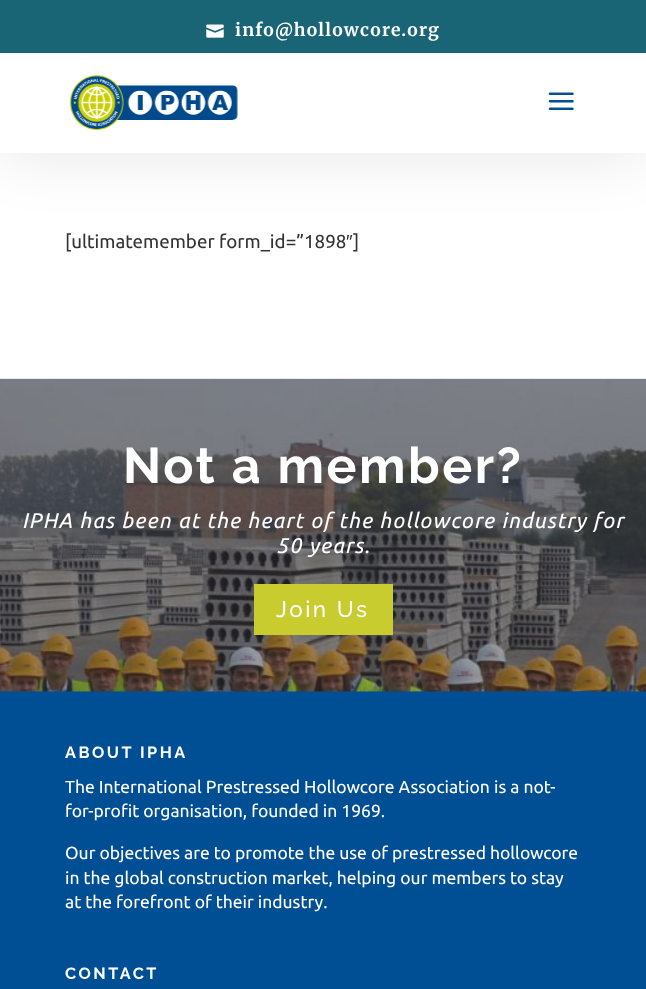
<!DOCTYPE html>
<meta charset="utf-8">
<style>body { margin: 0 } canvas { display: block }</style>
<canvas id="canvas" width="646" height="989"></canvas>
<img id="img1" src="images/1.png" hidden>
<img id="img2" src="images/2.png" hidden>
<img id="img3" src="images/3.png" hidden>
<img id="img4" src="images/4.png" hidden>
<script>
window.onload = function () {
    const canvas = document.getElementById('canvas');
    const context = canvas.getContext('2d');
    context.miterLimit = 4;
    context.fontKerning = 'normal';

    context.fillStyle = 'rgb(255, 255, 255)';
    context.fillRect(0, 0, 646, 989);
    context.fillStyle = 'rgba(0, 0, 0, 0.1)';
    context.filter = 'blur(31px)';
    context.beginPath();
    context.rect(0, 53, 646, 100);
    context.fill();
    context.filter = 'none';
    context.fillStyle = 'rgb(255, 255, 255)';
    context.fillRect(0, 53, 646, 100);
    context.drawImage(document.getElementById('img1'), 69, 75, 169, 55);
    context.drawImage(document.getElementById('img2'), 548, 92, 26, 18);
    context.fillStyle = 'rgb(25, 101, 117)';
    context.fillRect(0, 0, 646, 53);
    context.drawImage(document.getElementById('img3'), 206, 24, 18, 14);
    context.fillStyle = 'rgb(0, 78, 147)';
    context.fillRect(0, 691, 646, 298);
    context.drawImage(document.getElementById('img4'), 0, 378, 646, 314);
    context.fillStyle = 'rgb(201, 204, 46)';
    context.fillRect(254, 584, 139, 51);
    context.letterSpacing = '1.25px';
    context.font = 'bold 17.5px Merriweather';
    context.fillStyle = 'rgb(255, 255, 255)';
    context.fillText('info@hollowcore.org', 235, 36);
    context.letterSpacing = '0px';
    context.font = '18.75px Ubuntu';
    context.fillStyle = 'rgb(51, 51, 51)';
    context.fillText('[ultimatemember form_id=”1898', 65, 248);
    context.font = '18.75px Liberation Sans';
    context.fillText('″', 346, 248);
    context.font = '18.75px Ubuntu';
    context.fillText(']', 353, 248);
    context.letterSpacing = '2.5px';
    context.font = 'bold 50px Raleway';
    context.fillStyle = 'rgb(255, 255, 255)';
    context.fillText('Not a member?', 123, 483);
    context.letterSpacing = '1.25px';
    context.font = 'italic 21.25px Ubuntu';
    context.fillText('IPHA has been at the heart of the hollowcore industry for', 22, 528);
    context.fillText('50 years.', 276, 553);
    context.letterSpacing = '2.5px';
    context.font = '500 22.5px Raleway';
    context.fillText('Join Us', 276, 617);
    context.font = 'bold 16.25px Raleway';
    context.fillText('ABOUT IPHA', 65, 758);
    context.letterSpacing = '0px';
    context.font = '17.5px Ubuntu';
    context.fillText('The International Prestressed Hollowcore Association is a not-', 65, 793);
    context.fillText('for-profit organisation, founded in 1969.', 65, 817);
    context.fillText('Our objectives are to promote the use of prestressed hollowcore', 65, 859);
    context.fillText('in the global construction market, helping our members to stay', 65, 884);
    context.fillText('at the forefront of their industry.', 65, 908);
    context.letterSpacing = '2.5px';
    context.font = 'bold 16.25px Raleway';
    context.fillText('CONTACT', 65, 979);
};
</script>
